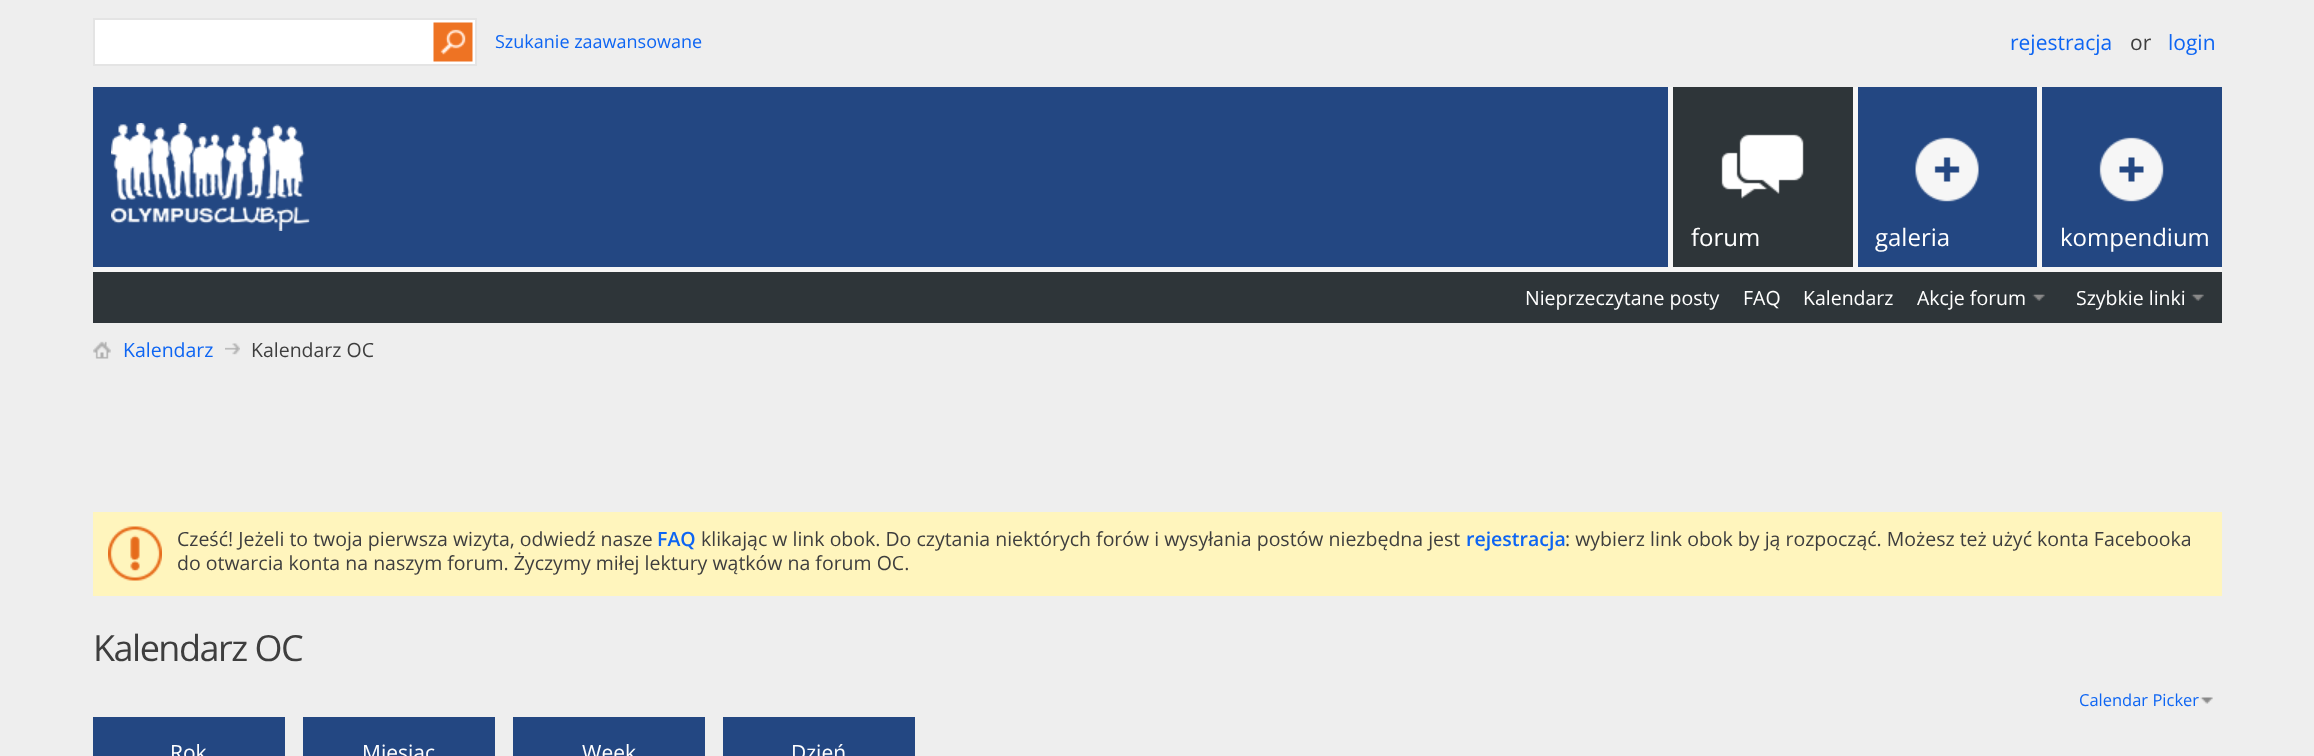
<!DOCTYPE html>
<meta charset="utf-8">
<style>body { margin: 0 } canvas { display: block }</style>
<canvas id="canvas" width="2314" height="756"></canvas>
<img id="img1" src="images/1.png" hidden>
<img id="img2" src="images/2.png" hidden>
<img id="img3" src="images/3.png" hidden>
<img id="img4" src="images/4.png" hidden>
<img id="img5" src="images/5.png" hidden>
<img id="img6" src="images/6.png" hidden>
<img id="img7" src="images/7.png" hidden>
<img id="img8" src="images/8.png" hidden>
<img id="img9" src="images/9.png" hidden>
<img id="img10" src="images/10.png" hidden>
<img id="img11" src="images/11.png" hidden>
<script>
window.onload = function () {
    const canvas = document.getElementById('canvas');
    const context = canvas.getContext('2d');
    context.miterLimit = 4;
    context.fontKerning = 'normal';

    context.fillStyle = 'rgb(238, 238, 238)';
    context.fillRect(0, 0, 2314, 756);
    context.fillStyle = 'rgb(255, 255, 255)';
    context.beginPath();
    context.rect(94, 19, 382, 46);
    context.fill();
    context.strokeStyle = 'rgb(228, 228, 228)';
    context.lineWidth = 2;
    context.stroke();
    context.drawImage(document.getElementById('img1'), 433, 22, 40, 40);
    context.fillStyle = 'rgb(35, 71, 130)';
    context.fillRect(93, 87, 2129, 180);
    context.drawImage(document.getElementById('img2'), 111, 123, 199, 108);
    context.fillStyle = 'rgb(246, 246, 246)';
    context.fillRect(1668, 87, 5, 180);
    context.fillStyle = 'rgb(46, 53, 57)';
    context.fillRect(1673, 87, 180, 180);
    context.drawImage(document.getElementById('img3'), 1721, 134, 83, 65);
    context.fillStyle = 'rgb(246, 246, 246)';
    context.fillRect(1853, 87, 5, 180);
    context.drawImage(document.getElementById('img4'), 1915, 137, 64, 65);
    context.fillRect(2037, 87, 5, 180);
    context.drawImage(document.getElementById('img5'), 2099, 137, 65, 65);
    context.fillStyle = 'rgb(46, 53, 57)';
    context.fillRect(93, 272, 2129, 51);
    context.fillStyle = 'rgb(246, 246, 246)';
    context.fillRect(93, 267, 2129, 5);
    context.drawImage(document.getElementById('img6'), 2032, 294, 13, 7);
    context.drawImage(document.getElementById('img7'), 2191, 294, 13, 7);
    context.drawImage(document.getElementById('img8'), 93, 341, 18, 18);
    context.drawImage(document.getElementById('img9'), 225, 343, 15, 12);
    context.fillStyle = 'rgb(255, 245, 189)';
    context.fillRect(93, 512, 2129, 84);
    context.drawImage(document.getElementById('img10'), 108, 526, 54, 55);
    context.drawImage(document.getElementById('img11'), 2200, 697, 13, 7);
    context.fillStyle = 'rgb(35, 71, 130)';
    context.fillRect(93, 717, 192, 39);
    context.fillRect(303, 717, 192, 39);
    context.fillRect(513, 717, 192, 39);
    context.fillRect(723, 717, 192, 39);
    context.font = '18px Open Sans';
    context.fillStyle = 'rgb(13, 101, 243)';
    context.fillText('Szukanie zaawansowane', 495, 48);
    context.font = '21px Open Sans';
    context.fillText('rejestracja', 2010, 50);
    context.fillStyle = 'rgb(62, 62, 62)';
    context.fillText('or', 2130, 50);
    context.fillStyle = 'rgb(13, 101, 243)';
    context.fillText('login', 2168, 50);
    context.font = '24px Open Sans';
    context.fillStyle = 'rgb(255, 255, 255)';
    context.fillText('forum', 1691, 246);
    context.fillText('galeria', 1875, 246);
    context.fillText('kompendium', 2060, 246);
    context.font = '19.5px Open Sans';
    context.fillText('Nieprzeczytane posty', 1525, 305);
    context.fillText('FAQ', 1743, 305);
    context.fillText('Kalendarz', 1803, 305);
    context.fillText('Akcje forum', 1917, 305);
    context.fillText('Szybkie linki', 2076, 305);
    context.fillStyle = 'rgb(13, 101, 243)';
    context.fillText('Kalendarz', 123, 357);
    context.fillStyle = 'rgb(62, 62, 62)';
    context.fillText('Kalendarz OC', 251, 357);
    context.fillText('Cześć! Jeżeli to twoja pierwsza wizyta, odwiedź nasze', 177, 546);
    context.font = '600 19.5px Open Sans';
    context.fillStyle = 'rgb(13, 101, 243)';
    context.fillText('FAQ', 657, 546);
    context.font = '19.5px Open Sans';
    context.fillStyle = 'rgb(62, 62, 62)';
    context.fillText('klikając w link obok. Do czytania niektórych forów i wysyłania postów niezbędna jest', 701, 546);
    context.font = '600 19.5px Open Sans';
    context.fillStyle = 'rgb(13, 101, 243)';
    context.fillText('rejestracja', 1466, 546);
    context.font = '19.5px Open Sans';
    context.fillStyle = 'rgb(62, 62, 62)';
    context.fillText(': wybierz link obok by ją rozpocząć. Możesz też użyć konta Facebooka', 1565, 546);
    context.fillText('do otwarcia konta na naszym forum. Życzymy miłej lektury wątków na forum OC.', 177, 570);
    context.letterSpacing = '-1.5px';
    context.font = '36px Open Sans';
    context.fillText('Kalendarz OC', 93, 661);
    context.letterSpacing = '0px';
    context.font = '16.5px Open Sans';
    context.fillStyle = 'rgb(13, 101, 243)';
    context.fillText('Calendar Picker', 2079, 706);
    context.font = '21px Open Sans';
    context.fillStyle = 'rgb(255, 255, 255)';
    context.fillText('Rok', 170, 760);
    context.fillText('Miesiąc', 362, 760);
    context.fillText('Week', 582, 760);
    context.fillText('Dzień', 791, 760);
};
</script>
